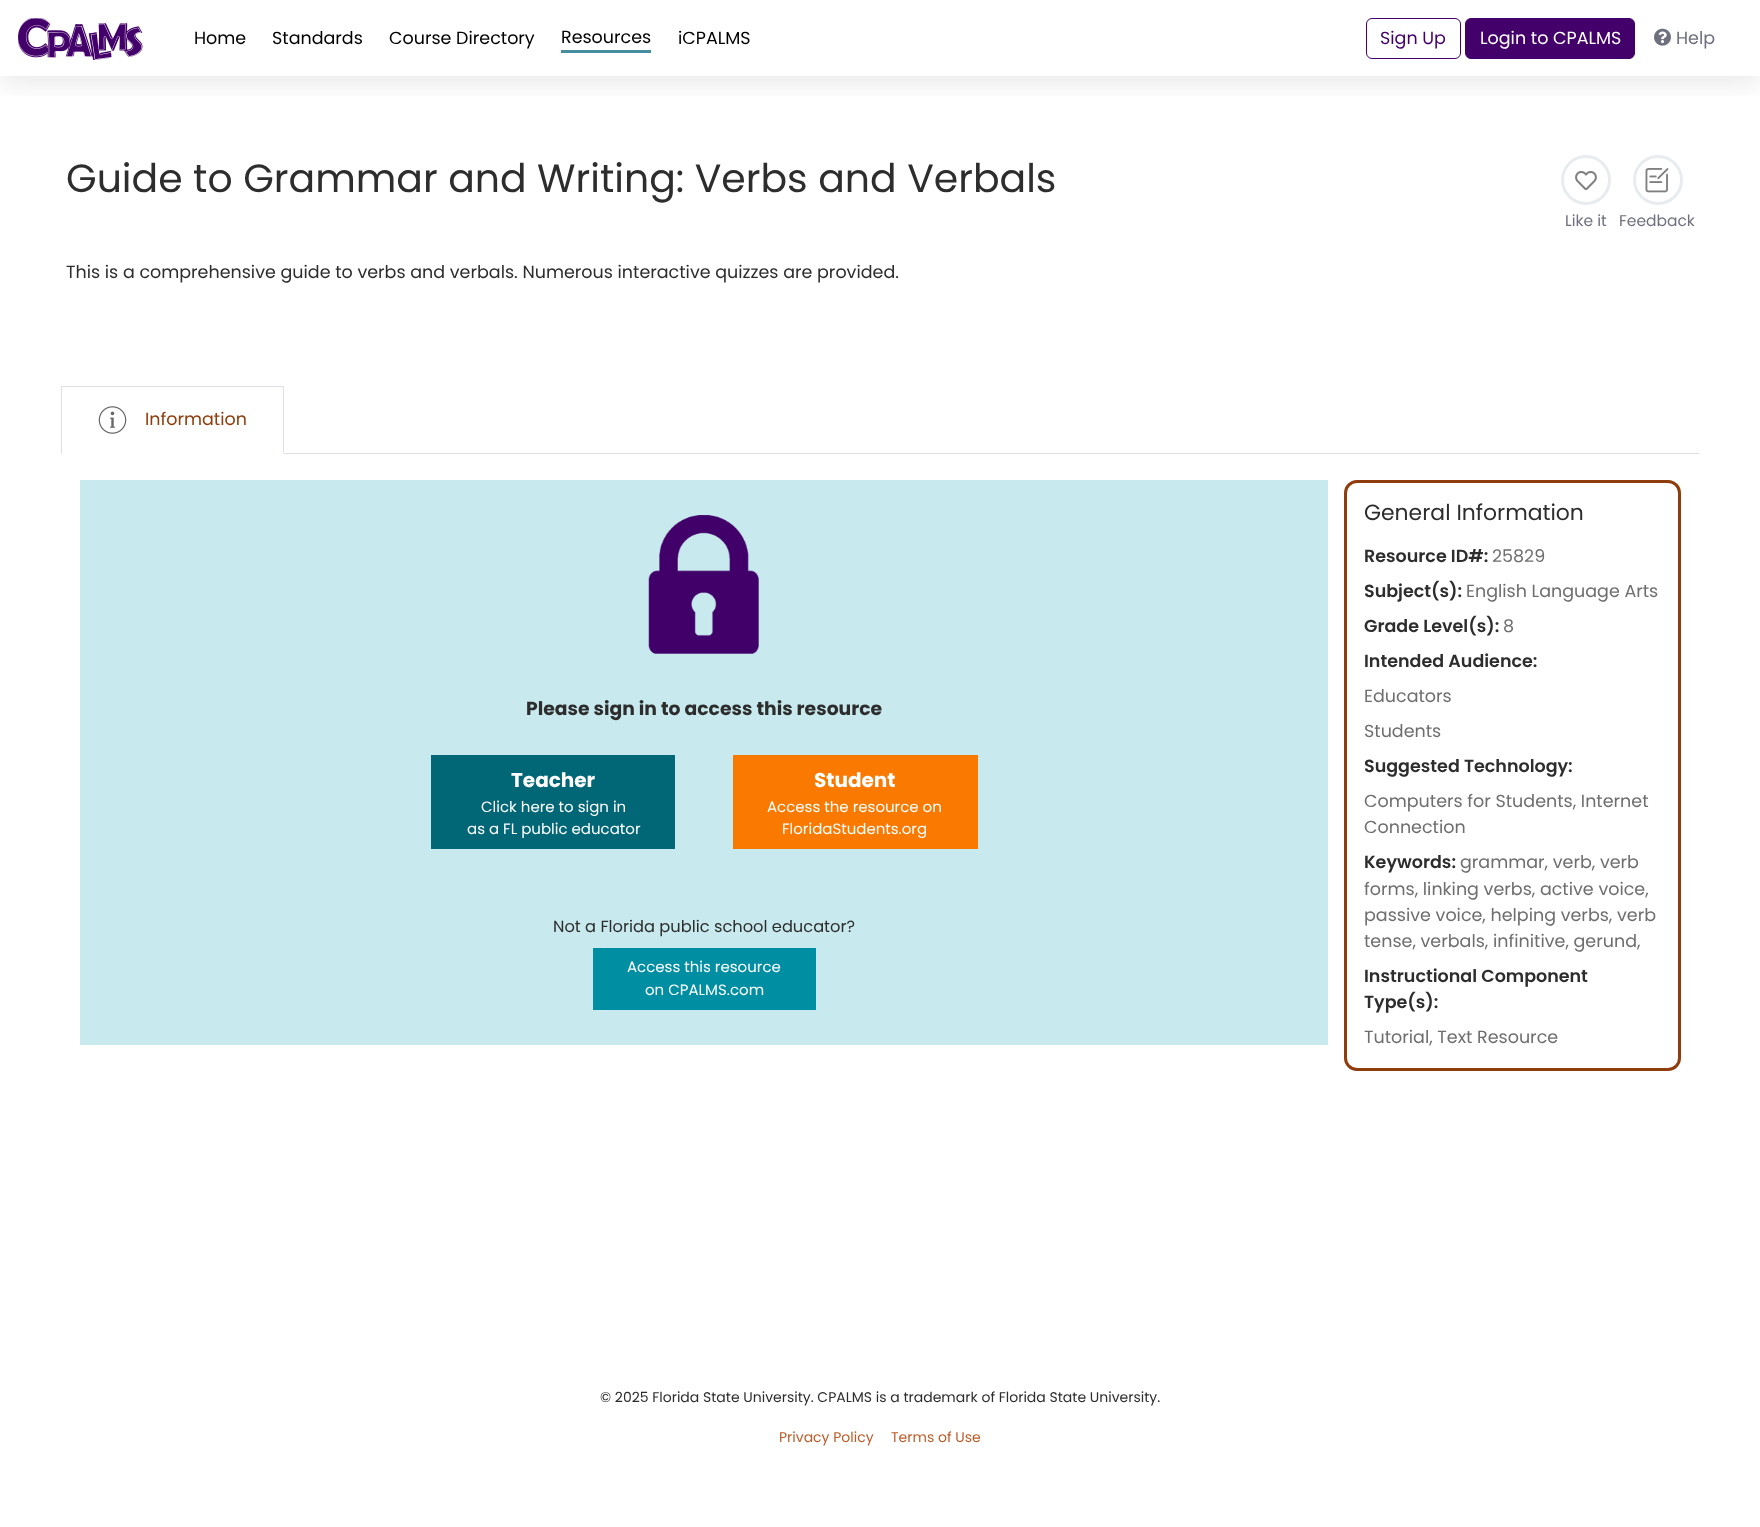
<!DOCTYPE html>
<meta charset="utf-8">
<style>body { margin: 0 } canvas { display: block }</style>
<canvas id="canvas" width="1760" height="1527"></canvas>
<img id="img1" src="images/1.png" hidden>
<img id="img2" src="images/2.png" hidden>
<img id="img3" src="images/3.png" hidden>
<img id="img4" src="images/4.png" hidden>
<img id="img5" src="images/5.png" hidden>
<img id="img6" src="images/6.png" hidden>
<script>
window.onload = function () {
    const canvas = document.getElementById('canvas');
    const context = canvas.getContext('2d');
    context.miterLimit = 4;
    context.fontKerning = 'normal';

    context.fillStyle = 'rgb(255, 255, 255)';
    context.fillRect(0, 0, 1760, 1527);
    context.save();
    context.beginPath();
    context.rect(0, 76, 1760, 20);
    context.clip();
    context.fillStyle = 'rgba(58, 59, 69, 0.15)';
    context.filter = 'blur(15.5px)';
    context.beginPath();
    context.rect(0, 3, 1760, 76);
    context.fill();
    context.filter = 'none';
    context.restore();
    context.drawImage(document.getElementById('img1'), 18, 18, 125, 42);
    context.fillStyle = 'rgb(71, 141, 160)';
    context.fillRect(561, 50, 90, 3);
    context.beginPath();
    context.roundRect(1366.5, 18.5, 94, 40, 5.5);
    context.strokeStyle = 'rgb(68, 0, 106)';
    context.stroke();
    context.fillStyle = 'rgb(68, 0, 106)';
    context.beginPath();
    context.roundRect(1465.5, 18.5, 169, 40, 5.5);
    context.fill();
    context.stroke();
    context.drawImage(document.getElementById('img2'), 1654, 28, 17, 18);
    context.beginPath();
    context.arc(1586, 180, 23.5, 0, 2 * Math.PI);
    context.strokeStyle = 'rgb(233, 236, 239)';
    context.lineWidth = 3;
    context.stroke();
    context.drawImage(document.getElementById('img3'), 1575, 171, 22, 20);
    context.beginPath();
    context.arc(1658, 180, 23.5, 0, 2 * Math.PI);
    context.stroke();
    context.drawImage(document.getElementById('img4'), 1645, 168, 24, 25);
    context.fillStyle = 'rgb(221, 223, 235)';
    context.fillRect(284, 453, 1415, 1);
    context.fillRect(61, 386, 223, 1);
    context.fillRect(283, 386, 1, 68);
    context.fillStyle = 'rgb(255, 255, 255)';
    context.fillRect(283, 453, 1, 1);
    context.fillStyle = 'rgb(221, 223, 235)';
    context.fillRect(61, 386, 1, 68);
    context.drawImage(document.getElementById('img5'), 98, 406, 29, 28);
    context.fillStyle = 'rgb(200, 234, 238)';
    context.fillRect(80, 480, 1248, 565);
    context.drawImage(document.getElementById('img6'), 648, 515, 111, 139);
    context.fillStyle = 'rgb(1, 102, 117)';
    context.fillRect(431, 755, 244, 94);
    context.fillStyle = 'rgb(250, 121, 0)';
    context.fillRect(733, 755, 245, 94);
    context.fillStyle = 'rgb(0, 142, 163)';
    context.fillRect(593, 948, 223, 62);
    context.beginPath();
    context.roundRect(1345.5, 481.5, 334, 588, 11.5);
    context.strokeStyle = 'rgb(143, 61, 13)';
    context.stroke();
    context.font = '17.5px Poppins';
    context.fillStyle = 'rgb(0, 0, 0)';
    context.fillText('Home', 194, 44);
    context.fillText('Standards', 272, 44);
    context.fillText('Course Directory', 389, 44);
    context.fillText('Resources', 561, 43);
    context.fillText('iCPALMS', 678, 44);
    context.fillStyle = 'rgb(68, 0, 106)';
    context.fillText('Sign Up', 1380, 44);
    context.fillStyle = 'rgb(255, 255, 255)';
    context.fillText('Login to CPALMS', 1480, 44);
    context.fillStyle = 'rgb(110, 112, 126)';
    context.fillText('Help', 1676, 44);
    context.font = '39.4px Poppins';
    context.fillStyle = 'rgb(45, 45, 45)';
    context.fillText('Guide to Grammar and Writing: Verbs and Verbals', 66, 192);
    context.font = '15.5px Poppins';
    context.fillStyle = 'rgb(110, 112, 126)';
    context.fillText('Like it', 1565, 226);
    context.fillText('Feedback', 1619, 226);
    context.font = '17.5px Poppins';
    context.fillStyle = 'rgb(45, 45, 45)';
    context.fillText('This is a comprehensive guide to verbs and verbals. Numerous interactive quizzes are provided.', 66, 278);
    context.fillStyle = 'rgb(143, 61, 13)';
    context.fillText('Information', 145, 425);
    context.font = 'bold 18.75px Poppins';
    context.fillStyle = 'rgb(45, 45, 45)';
    context.fillText('Please sign in to access this resource', 526, 715);
    context.font = 'bold 20px Poppins';
    context.fillStyle = 'rgb(255, 255, 255)';
    context.fillText('Teacher', 511, 787);
    context.font = '15px Poppins';
    context.fillText('Click here to sign in', 481, 812);
    context.fillText('as a FL public educator', 467, 834);
    context.font = 'bold 20px Poppins';
    context.fillText('Student', 814, 787);
    context.font = '15px Poppins';
    context.fillText('Access the resource on', 767, 812);
    context.fillText('FloridaStudents.org', 782, 834);
    context.font = '16.25px Poppins';
    context.fillStyle = 'rgb(45, 45, 45)';
    context.fillText('Not a Florida public school educator?', 553, 932);
    context.font = '15px Poppins';
    context.fillStyle = 'rgb(255, 255, 255)';
    context.fillText('Access this resource', 627, 972);
    context.fillText('on CPALMS.com', 645, 995);
    context.font = '21.9px Poppins';
    context.fillStyle = 'rgb(45, 45, 45)';
    context.fillText('General Information', 1364, 520);
    context.font = '600 17.5px Poppins';
    context.fillText('Resource ID#:', 1364, 562);
    context.font = '17.5px Poppins';
    context.fillStyle = 'rgb(110, 110, 110)';
    context.fillText('25829', 1492, 562);
    context.font = '600 17.5px Poppins';
    context.fillStyle = 'rgb(45, 45, 45)';
    context.fillText('Subject(s):', 1364, 597);
    context.font = '17.5px Poppins';
    context.fillStyle = 'rgb(110, 110, 110)';
    context.fillText('English Language Arts', 1466, 597);
    context.font = '600 17.5px Poppins';
    context.fillStyle = 'rgb(45, 45, 45)';
    context.fillText('Grade Level(s):', 1364, 632);
    context.font = '17.5px Poppins';
    context.fillStyle = 'rgb(110, 110, 110)';
    context.fillText('8', 1503, 632);
    context.font = '600 17.5px Poppins';
    context.fillStyle = 'rgb(45, 45, 45)';
    context.fillText('Intended Audience:', 1364, 667);
    context.font = '17.5px Poppins';
    context.fillStyle = 'rgb(110, 110, 110)';
    context.fillText('Educators', 1364, 702);
    context.fillText('Students', 1364, 737);
    context.font = '600 17.5px Poppins';
    context.fillStyle = 'rgb(45, 45, 45)';
    context.fillText('Suggested Technology:', 1364, 772);
    context.font = '17.5px Poppins';
    context.fillStyle = 'rgb(110, 110, 110)';
    context.fillText('Computers for Students, Internet', 1364, 807);
    context.fillText('Connection', 1364, 833);
    context.font = '600 17.5px Poppins';
    context.fillStyle = 'rgb(45, 45, 45)';
    context.fillText('Keywords:', 1364, 868);
    context.font = '17.5px Poppins';
    context.fillStyle = 'rgb(110, 110, 110)';
    context.fillText('grammar, verb, verb', 1460, 868);
    context.fillText('forms, linking verbs, active voice,', 1364, 895);
    context.fillText('passive voice, helping verbs, verb', 1364, 921);
    context.fillText('tense, verbals, infinitive, gerund,', 1364, 947);
    context.font = '600 17.5px Poppins';
    context.fillStyle = 'rgb(45, 45, 45)';
    context.fillText('Instructional Component', 1364, 982);
    context.fillText('Type(s):', 1364, 1008);
    context.font = '17.5px Poppins';
    context.fillStyle = 'rgb(110, 110, 110)';
    context.fillText('Tutorial, Text Resource', 1364, 1043);
    context.font = '14px Poppins';
    context.fillStyle = 'rgb(45, 45, 45)';
    context.fillText('© 2025 Florida State University. CPALMS is a trademark of Florida State University.', 600, 1402);
    context.fillStyle = 'rgb(188, 92, 40)';
    context.fillText('Privacy Policy', 779, 1442);
    context.fillText('Terms of Use', 891, 1442);
};
</script>
